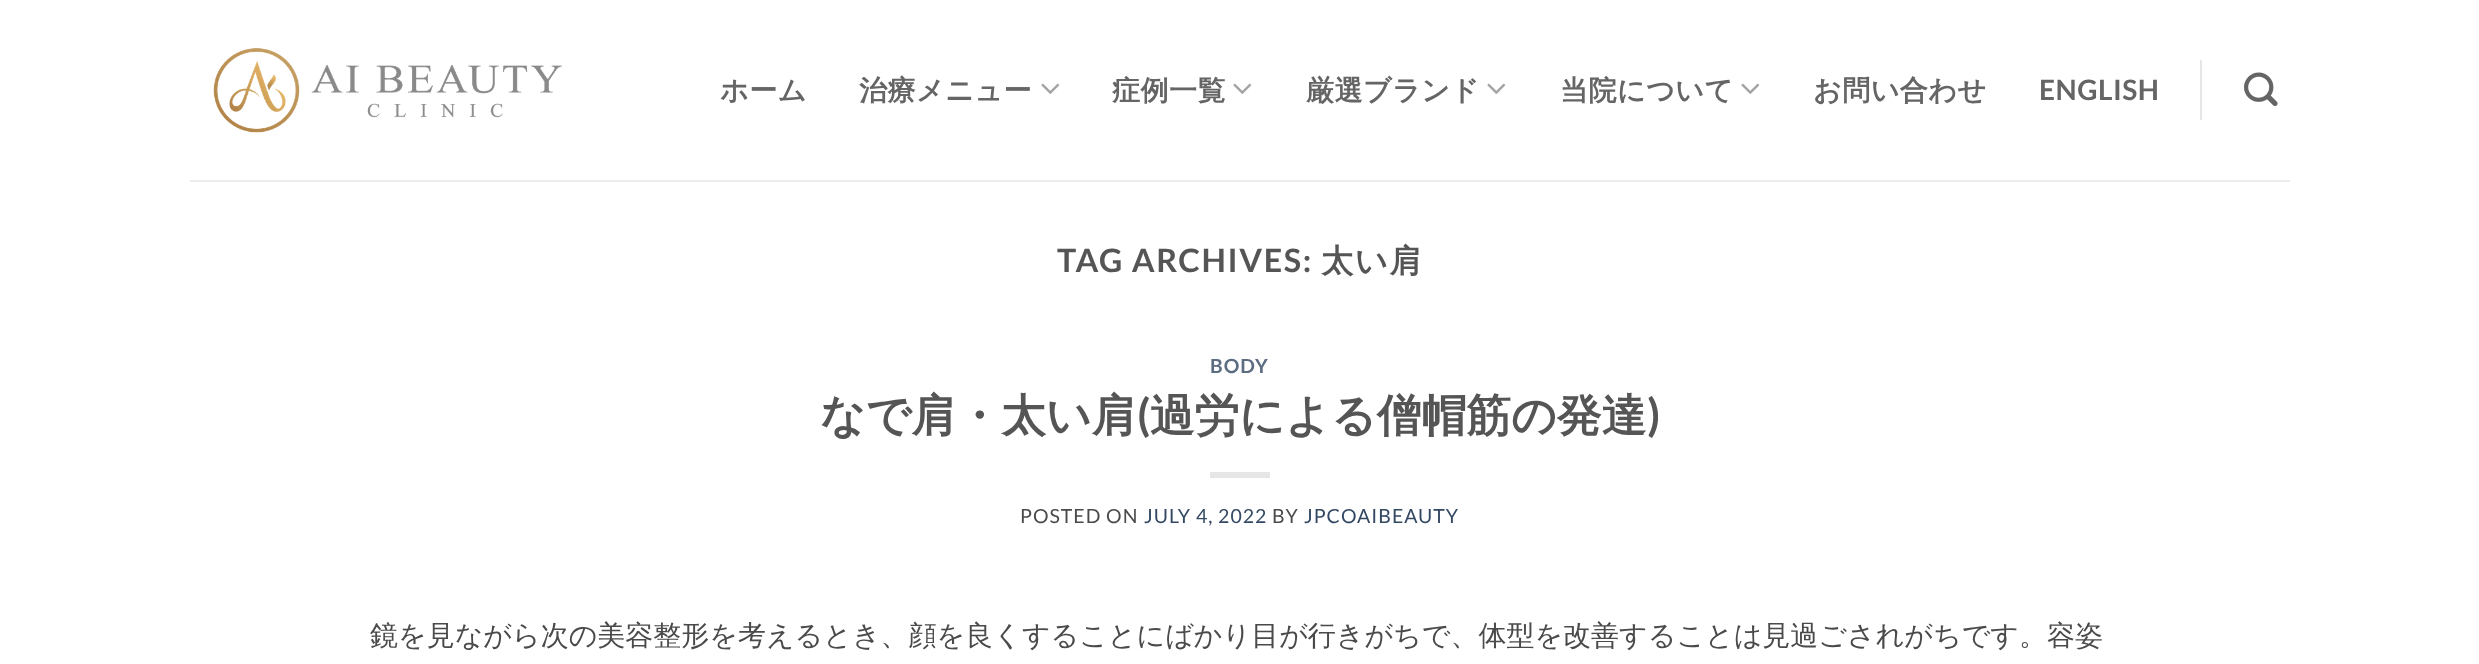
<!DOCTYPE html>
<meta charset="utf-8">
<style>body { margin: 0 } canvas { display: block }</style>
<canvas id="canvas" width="2479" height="664"></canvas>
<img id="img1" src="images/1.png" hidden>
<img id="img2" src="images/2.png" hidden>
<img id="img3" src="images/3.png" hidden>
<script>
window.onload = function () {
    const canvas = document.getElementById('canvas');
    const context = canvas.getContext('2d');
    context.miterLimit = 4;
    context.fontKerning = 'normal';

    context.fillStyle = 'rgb(255, 255, 255)';
    context.fillRect(0, 0, 2479, 664);
    context.drawImage(document.getElementById('img1'), 213, 48, 349, 85);
    context.drawImage(document.getElementById('img2'), 1041, 83, 19, 11);
    context.drawImage(document.getElementById('img2'), 1233, 83, 19, 11);
    context.drawImage(document.getElementById('img2'), 1487, 83, 19, 11);
    context.drawImage(document.getElementById('img2'), 1741, 83, 19, 11);
    context.fillStyle = 'rgb(230, 230, 230)';
    context.fillRect(2200, 60, 2, 60);
    context.drawImage(document.getElementById('img3'), 2244, 72, 34, 34);
    context.fillStyle = 'rgb(237, 237, 237)';
    context.fillRect(190, 180, 2100, 2);
    context.fillStyle = 'rgb(230, 230, 230)';
    context.fillRect(1210, 472, 60, 6);
    context.letterSpacing = '0.5px';
    context.font = 'bold 28px WenQuanYi Zen Hei';
    context.fillStyle = 'rgb(101, 101, 101)';
    context.fillText('ホーム', 720, 100);
    context.fillText('治療メニュー', 859, 100);
    context.fillText('症例一覧', 1112, 100);
    context.fillText('厳選ブランド', 1306, 100);
    context.fillText('当院について', 1560, 100);
    context.fillText('お問い合わせ', 1813, 100);
    context.font = 'bold 28px Lato';
    context.fillText('ENGLISH', 2039, 100);
    context.letterSpacing = '1.6px';
    context.font = 'bold 32.25px Lato';
    context.fillStyle = 'rgb(85, 85, 85)';
    context.fillText('TAG ARCHIVES:', 1057, 272);
    context.font = 'bold 32.25px WenQuanYi Zen Hei';
    context.fillText('太い肩', 1321, 272);
    context.letterSpacing = '1px';
    context.font = 'bold 19.5px Lato';
    context.fillStyle = 'rgb(92, 109, 129)';
    context.fillText('BODY', 1210, 373);
    context.letterSpacing = '0px';
    context.font = 'bold 44.75px WenQuanYi Zen Hei';
    context.fillStyle = 'rgb(85, 85, 85)';
    context.fillText('なで肩・太い肩 過労による僧帽筋の発達', 820, 431);
    context.font = 'bold 44.75px Lato';
    context.fillText('(', 1137, 431);
    context.fillText(')', 1647, 431);
    context.letterSpacing = '1px';
    context.font = '19.5px Lato';
    context.fillStyle = 'rgb(74, 74, 74)';
    context.fillText('POSTED ON', 1020, 523);
    context.fillStyle = 'rgb(51, 72, 98)';
    context.fillText('JULY 4, 2022', 1144, 523);
    context.fillStyle = 'rgb(74, 74, 74)';
    context.fillText('BY', 1272, 523);
    context.fillStyle = 'rgb(51, 72, 98)';
    context.fillText('JPCOAIBEAUTY', 1304, 523);
    context.letterSpacing = '0px';
    context.font = '500 28px WenQuanYi Zen Hei';
    context.fillStyle = 'rgb(74, 74, 74)';
    context.fillText('鏡を見ながら次の美容整形を考えるとき、顔を良くすることにばかり目が行きがちで、体型を改善することは見過ごされがちです。容姿', 370, 645);
};
</script>
